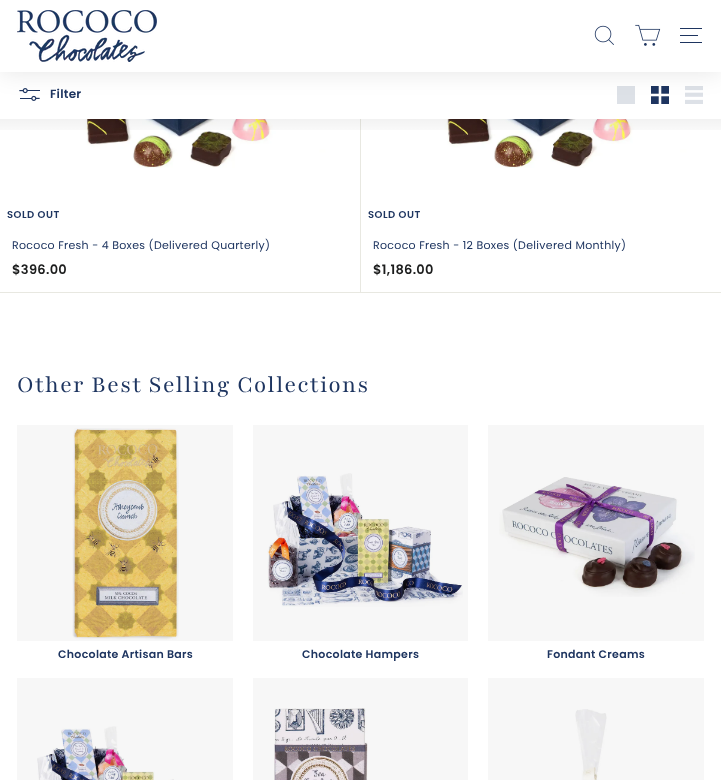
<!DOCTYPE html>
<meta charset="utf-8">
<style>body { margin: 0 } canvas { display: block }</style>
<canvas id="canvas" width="721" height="780"></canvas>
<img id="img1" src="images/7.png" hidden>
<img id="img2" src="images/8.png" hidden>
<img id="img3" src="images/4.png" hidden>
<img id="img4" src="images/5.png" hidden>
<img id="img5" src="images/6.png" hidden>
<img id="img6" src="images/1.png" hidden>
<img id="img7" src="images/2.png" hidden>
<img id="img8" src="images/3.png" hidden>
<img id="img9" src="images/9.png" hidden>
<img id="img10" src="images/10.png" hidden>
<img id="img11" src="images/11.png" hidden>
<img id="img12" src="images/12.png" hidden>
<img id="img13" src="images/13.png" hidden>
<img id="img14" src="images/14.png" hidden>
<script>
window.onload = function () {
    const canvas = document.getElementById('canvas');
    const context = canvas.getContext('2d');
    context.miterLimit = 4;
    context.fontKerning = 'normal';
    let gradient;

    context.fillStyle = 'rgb(255, 255, 255)';
    context.fillRect(0, 0, 721, 780);
    context.fillStyle = 'rgb(247, 247, 247)';
    context.fillRect(488, 678, 216, 102);
    context.fillRect(253, 678, 215, 102);
    context.fillRect(17, 678, 216, 102);
    context.fillRect(488, 425, 216, 216);
    context.fillRect(253, 425, 215, 216);
    context.fillRect(17, 425, 216, 216);
    context.drawImage(document.getElementById('img1'), 30, 119, 306, 49);
    context.strokeStyle = 'rgb(232, 232, 225)';
    context.strokeRect(-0.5, -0.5, 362, 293);
    context.fillStyle = 'rgb(255, 255, 255)';
    context.fillRect(361, 119, 1, 173);
    context.drawImage(document.getElementById('img2'), 390, 119, 307, 49);
    context.strokeRect(360.5, -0.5, 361, 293);
    context.fillRect(360, 72, 2, 47);
    context.drawImage(document.getElementById('img3'), 19, 88, 21, 13);
    context.fillStyle = 'rgb(221, 225, 231)';
    context.fillRect(617, 86, 18, 18);
    context.drawImage(document.getElementById('img4'), 651, 86, 18, 18);
    context.drawImage(document.getElementById('img5'), 685, 86, 18, 18);
    context.fillStyle = 'rgba(0, 0, 0, 0.1)';
    context.filter = 'blur(12.5px)';
    context.beginPath();
    context.rect(0, 0, 721, 72);
    context.fill();
    context.filter = 'none';
    context.fillStyle = 'rgb(255, 255, 255)';
    context.fillRect(0, 0, 721, 72);
    context.drawImage(document.getElementById('img6'), 17, 10, 140, 52);
    context.drawImage(document.getElementById('img7'), 594, 25, 20, 20);
    context.drawImage(document.getElementById('img8'), 635, 24, 26, 22);
    context.fillStyle = 'rgb(30, 53, 96)';
    context.fillRect(680, 28, 22, 1);
    context.fillRect(680, 35, 18, 1);
    context.fillRect(680, 42, 22, 1);
    gradient = context.createLinearGradient(361, 119, 361, 139);
    gradient.addColorStop(0, 'rgba(0, 0, 0, 0.05)');
    gradient.addColorStop(1, 'rgba(0, 0, 0, 0)');
    context.fillStyle = gradient;
    context.fillRect(0, 119, 721, 11);
    context.drawImage(document.getElementById('img9'), 72, 428, 107, 212);
    context.drawImage(document.getElementById('img10'), 267, 473, 196, 134);
    context.drawImage(document.getElementById('img11'), 499, 477, 196, 120);
    context.drawImage(document.getElementById('img12'), 37, 726, 137, 54);
    context.drawImage(document.getElementById('img13'), 274, 708, 94, 72);
    context.drawImage(document.getElementById('img14'), 575, 709, 32, 71);
    context.letterSpacing = '0.25px';
    context.font = '600 12px Poppins';
    context.fillStyle = 'rgb(30, 53, 96)';
    context.fillText('Filter', 50, 98);
    context.letterSpacing = '0.5px';
    context.font = '600 10px Poppins';
    context.fillText('SOLD OUT', 7, 218);
    context.letterSpacing = '0.3px';
    context.font = '11px Poppins';
    context.fillText('Rococo Fresh - 4 Boxes (Delivered Quarterly)', 12, 249);
    context.font = '600 13px Poppins';
    context.fillStyle = 'rgb(28, 29, 29)';
    context.fillText('$396.00', 12, 274);
    context.letterSpacing = '0.5px';
    context.font = '600 10px Poppins';
    context.fillStyle = 'rgb(30, 53, 96)';
    context.fillText('SOLD OUT', 368, 218);
    context.letterSpacing = '0.3px';
    context.font = '11px Poppins';
    context.fillText('Rococo Fresh - 12 Boxes (Delivered Monthly)', 373, 249);
    context.font = '600 13px Poppins';
    context.fillStyle = 'rgb(28, 29, 29)';
    context.fillText('$1,186.00', 373, 274);
    context.letterSpacing = '1.25px';
    context.font = '25.25px Playfair';
    context.fillStyle = 'rgb(30, 53, 96)';
    context.fillText('Other Best Selling Collections', 17, 392);
    context.letterSpacing = '0.3px';
    context.font = '600 11px Poppins';
    context.fillText('Chocolate Artisan Bars', 58, 658);
    context.fillText('Chocolate Hampers', 302, 658);
    context.fillText('Fondant Creams', 547, 658);
};
</script>
